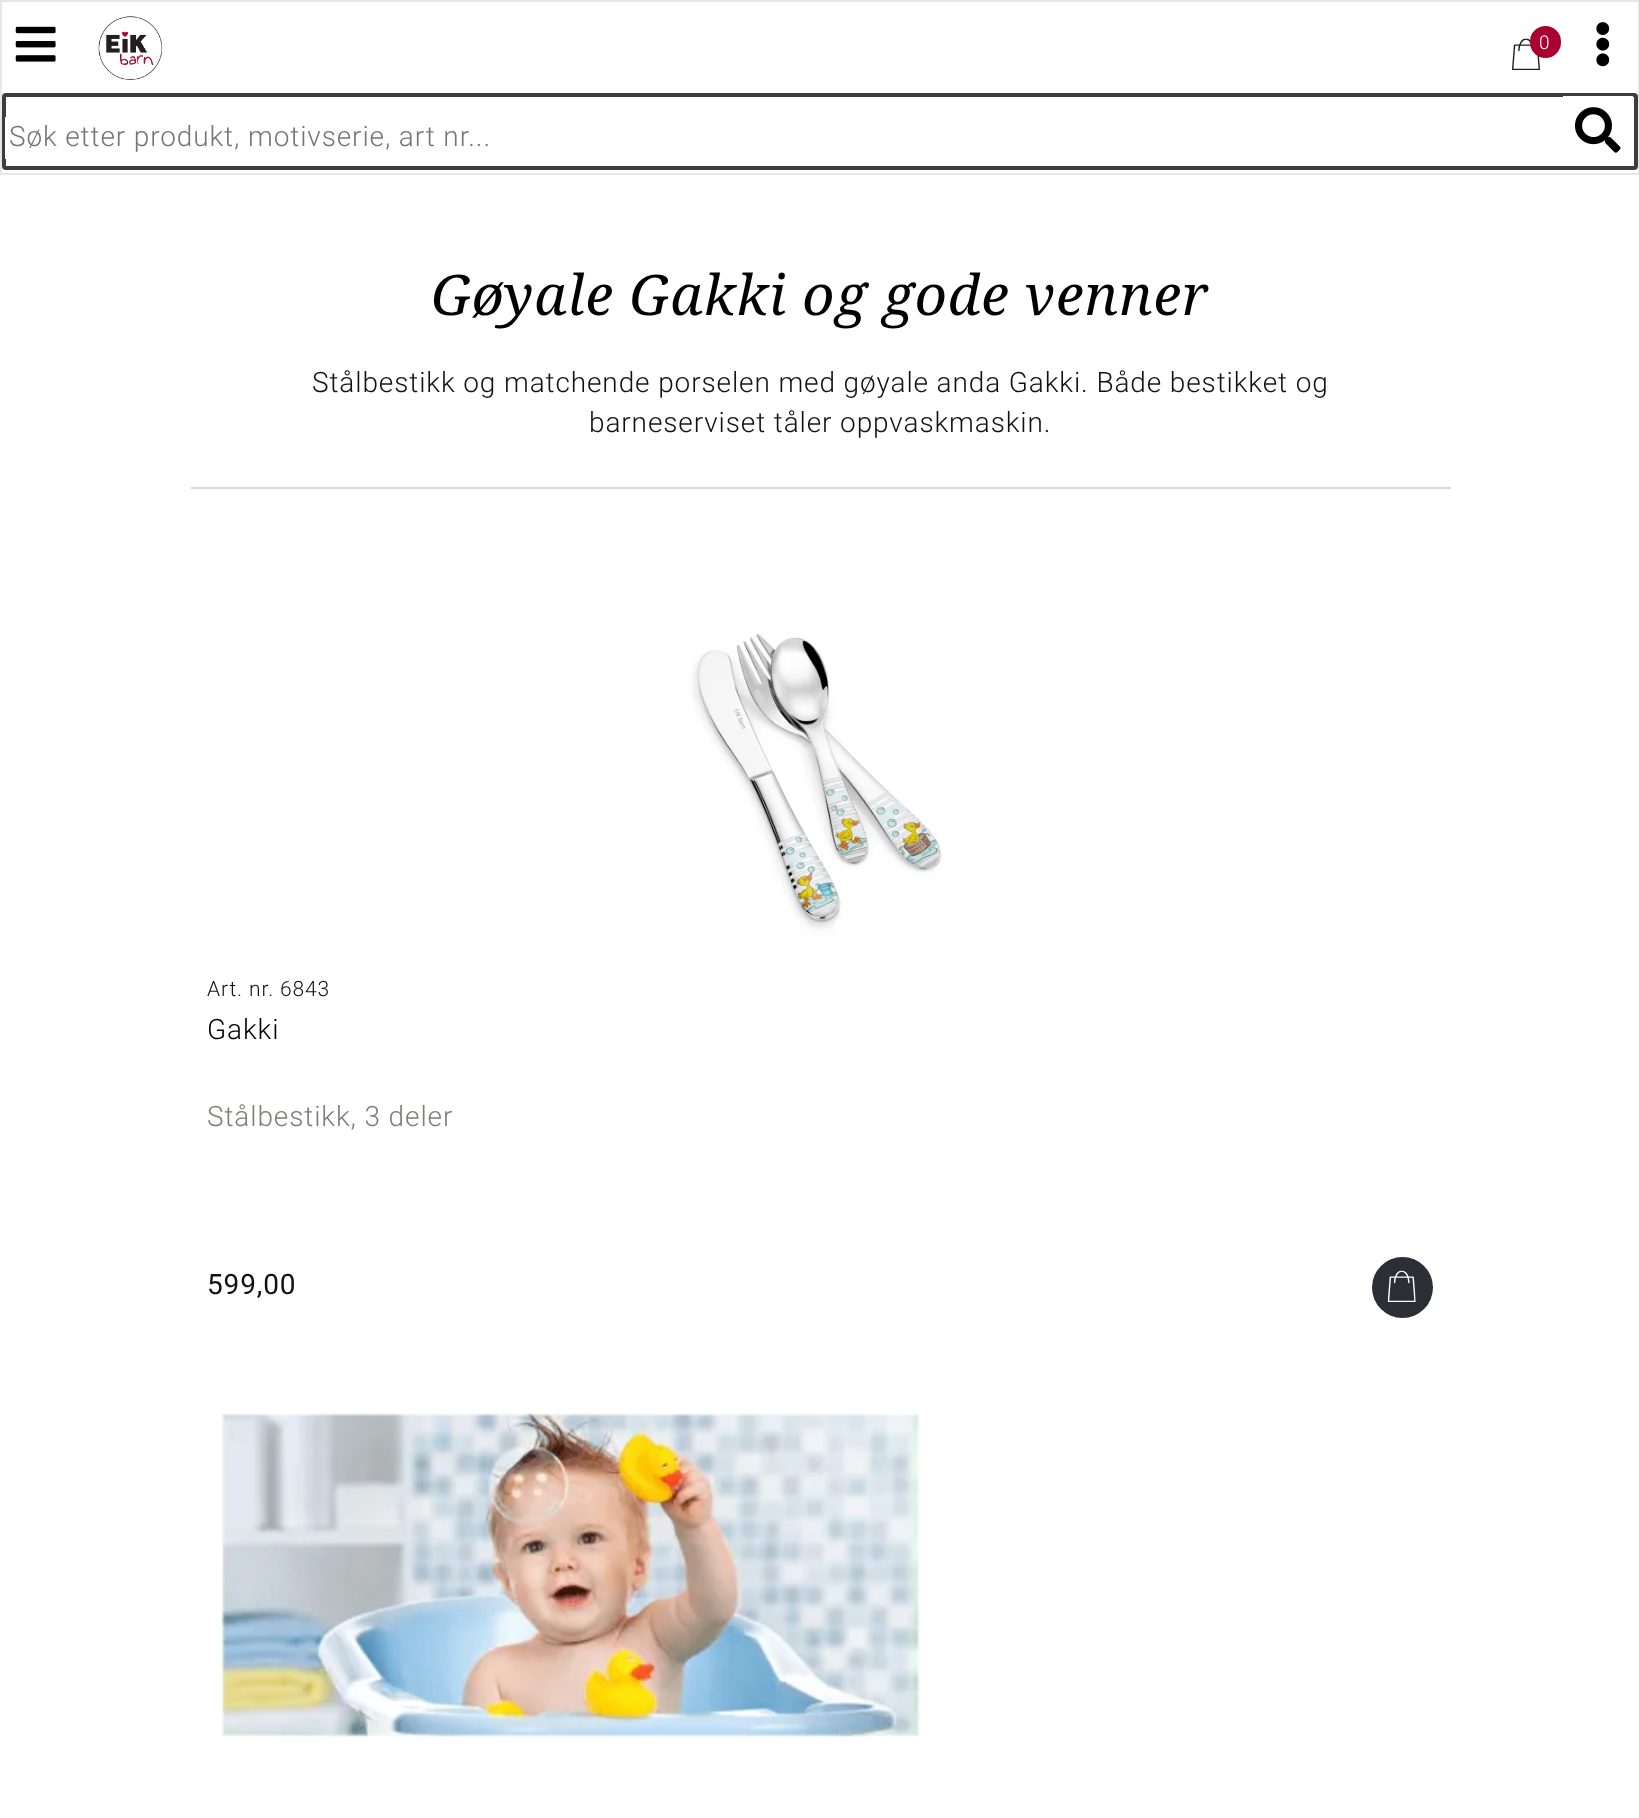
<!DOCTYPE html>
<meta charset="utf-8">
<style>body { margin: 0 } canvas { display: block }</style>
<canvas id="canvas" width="1639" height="1818"></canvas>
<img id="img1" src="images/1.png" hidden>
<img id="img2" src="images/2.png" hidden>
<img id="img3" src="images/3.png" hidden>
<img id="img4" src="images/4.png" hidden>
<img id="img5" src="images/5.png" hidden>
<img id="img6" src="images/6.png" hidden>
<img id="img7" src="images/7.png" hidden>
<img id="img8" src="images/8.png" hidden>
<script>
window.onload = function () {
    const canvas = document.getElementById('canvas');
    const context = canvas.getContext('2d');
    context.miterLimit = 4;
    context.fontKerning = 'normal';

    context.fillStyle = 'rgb(255, 255, 255)';
    context.fillRect(0, 0, 1639, 1818);
    context.strokeStyle = 'rgb(231, 231, 231)';
    context.lineWidth = 2;
    context.strokeRect(1, 1, 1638, 173);
    context.drawImage(document.getElementById('img1'), 15, 26, 41, 36);
    context.drawImage(document.getElementById('img2'), 98, 16, 64, 64);
    context.drawImage(document.getElementById('img3'), 1512, 38, 28, 32);
    context.fillStyle = 'rgb(169, 2, 48)';
    context.beginPath();
    context.roundRect(1531, 27, 29, 30, 14.5);
    context.fill();
    context.strokeStyle = 'rgb(169, 2, 48)';
    context.stroke();
    context.drawImage(document.getElementById('img4'), 1596, 22, 14, 45);
    context.beginPath();
    context.roundRect(4, 95, 1632, 73, 2);
    context.strokeStyle = 'rgb(61, 61, 61)';
    context.lineWidth = 4;
    context.stroke();
    context.fillStyle = 'rgb(255, 255, 255)';
    context.fillRect(5, 117, 1, 42);
    context.fillRect(1563, 96, 70, 1);
    context.drawImage(document.getElementById('img5'), 1575, 107, 46, 46);
    context.fillStyle = 'rgb(218, 218, 218)';
    context.fillRect(191, 487, 1260, 2);
    context.drawImage(document.getElementById('img6'), 663, 623, 315, 315);
    context.fillStyle = 'rgb(44, 46, 53)';
    context.beginPath();
    context.arc(1402.5, 1287.5, 30.5, 0, 2 * Math.PI);
    context.fill();
    context.drawImage(document.getElementById('img7'), 1387, 1270, 29, 32);
    context.drawImage(document.getElementById('img8'), 221, 1413, 699, 324);
    context.letterSpacing = '0.88px';
    context.font = '300 19px Roboto';
    context.fillStyle = 'rgb(255, 255, 255)';
    context.fillText('0', 1539, 49);
    context.font = '300 28px Roboto';
    context.fillStyle = 'rgb(117, 117, 117)';
    context.fillText('Søk etter produkt, motivserie, art nr...', 9, 146);
    context.font = 'italic 56px Noto Serif';
    context.fillStyle = 'rgb(0, 0, 0)';
    context.fillText('Gøyale Gakki og gode venner', 431, 315);
    context.font = '300 28px Roboto';
    context.fillStyle = 'rgb(17, 17, 17)';
    context.fillText('Stålbestikk og matchende porselen med gøyale anda Gakki. Både bestikket og', 312, 392);
    context.fillText('barneserviset tåler oppvaskmaskin.', 589, 432);
    context.font = '300 21px Roboto';
    context.fillText('Art. nr. 6843', 207, 996);
    context.font = '300 28px Roboto';
    context.fillStyle = 'rgb(0, 0, 0)';
    context.fillText('Gakki', 207, 1039);
    context.fillStyle = 'rgb(126, 125, 122)';
    context.fillText('Stålbestikk, 3 deler', 207, 1126);
    context.font = '28px Roboto';
    context.fillStyle = 'rgb(17, 17, 17)';
    context.fillText('599,00', 207, 1294);
};
</script>
